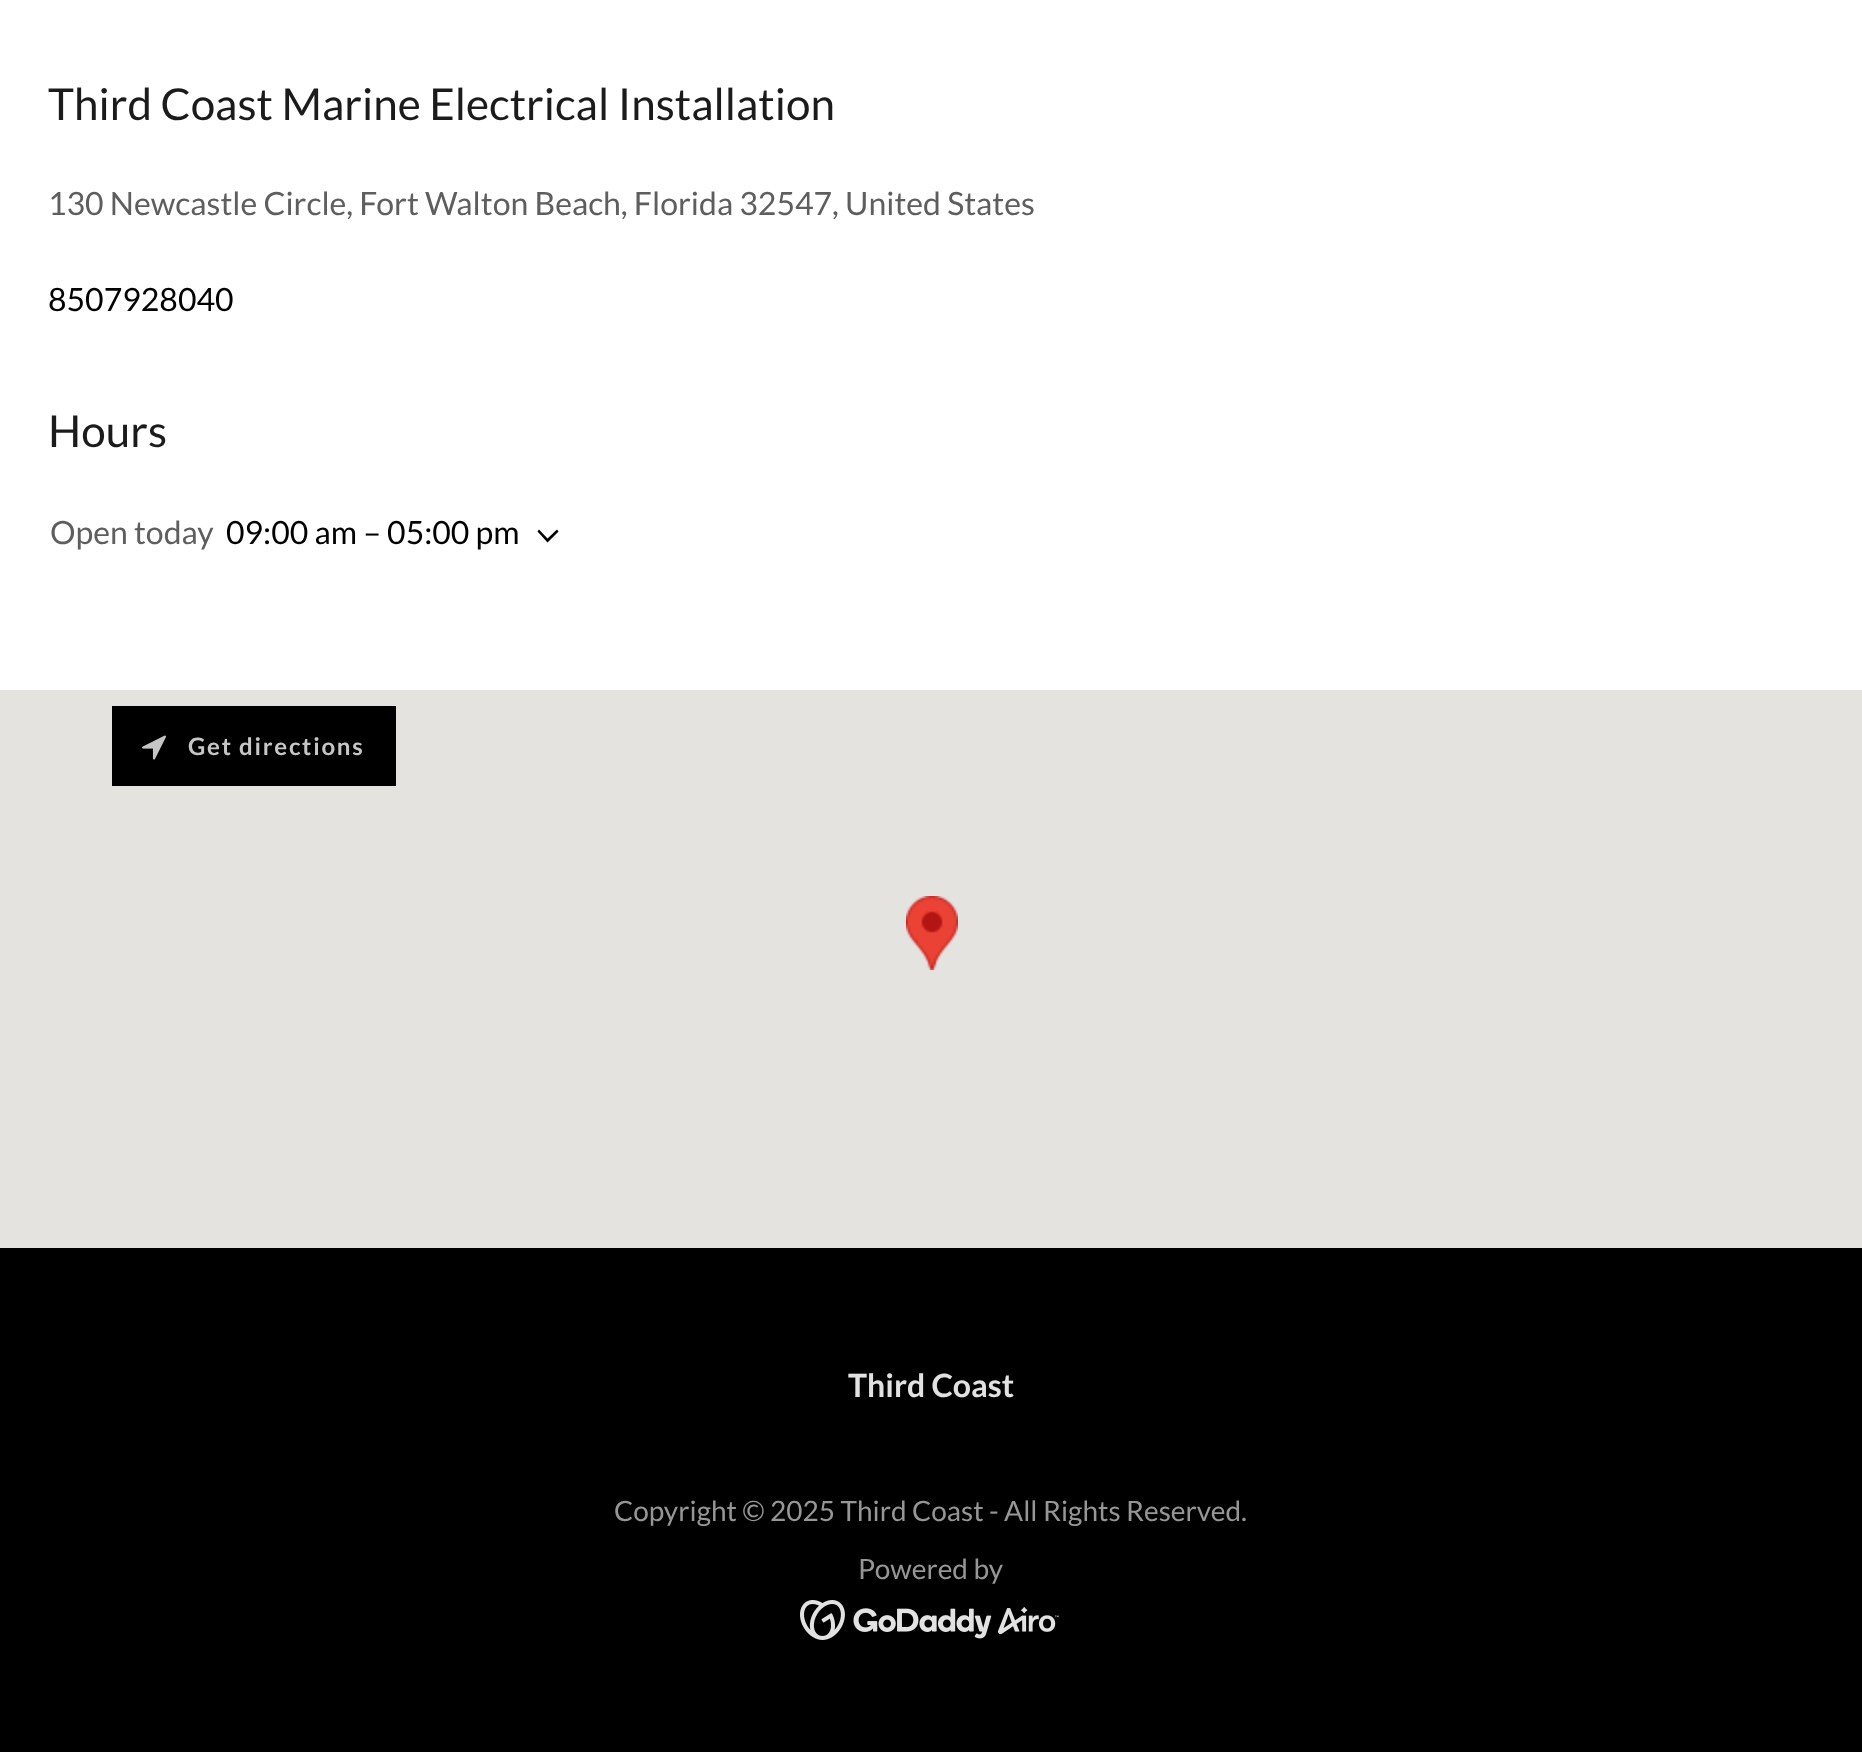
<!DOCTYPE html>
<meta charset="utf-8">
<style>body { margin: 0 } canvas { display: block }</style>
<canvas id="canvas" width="1862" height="1752"></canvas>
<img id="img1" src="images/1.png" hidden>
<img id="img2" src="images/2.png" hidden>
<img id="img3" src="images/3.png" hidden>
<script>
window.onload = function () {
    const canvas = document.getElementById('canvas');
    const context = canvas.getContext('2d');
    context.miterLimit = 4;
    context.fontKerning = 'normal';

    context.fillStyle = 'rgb(0, 0, 0)';
    context.fillRect(0, 0, 1862, 1752);
    context.fillStyle = 'rgb(255, 255, 255)';
    context.fillRect(0, 0, 1862, 690);
    context.fillStyle = 'rgb(0, 0, 0)';
    context.beginPath();
    context.moveTo(557, 529.5);
    context.lineTo(547.5, 538.5);
    context.lineTo(539, 529.5);
    context.lineTo(537.5, 531.5);
    context.lineTo(547.5, 542.5);
    context.lineTo(558.5, 531.5);
    context.closePath();
    context.fill('evenodd');
    context.fillStyle = 'rgb(229, 227, 223)';
    context.fillRect(0, 690, 1862, 558);
    context.drawImage(document.getElementById('img1'), 906, 896, 52, 74);
    context.fillStyle = 'rgb(0, 0, 0)';
    context.fillRect(112, 706, 284, 80);
    context.drawImage(document.getElementById('img2'), 142, 735, 24, 25);
    context.drawImage(document.getElementById('img3'), 800, 1600, 259, 40);
    context.font = '44px Lato';
    context.fillStyle = 'rgb(27, 27, 27)';
    context.fillText('Third Coast Marine Electrical Installation', 48, 120);
    context.font = '32px Lato';
    context.fillStyle = 'rgb(94, 94, 94)';
    context.fillText('130 Newcastle Circle, Fort Walton Beach, Florida 32547, United States', 48, 215);
    context.fillStyle = 'rgb(0, 0, 0)';
    context.fillText('8507928040', 48, 311);
    context.font = '44px Lato';
    context.fillStyle = 'rgb(27, 27, 27)';
    context.fillText('Hours', 48, 447);
    context.font = '32px Lato';
    context.fillStyle = 'rgb(94, 94, 94)';
    context.fillText('Open today', 50, 544);
    context.fillStyle = 'rgb(0, 0, 0)';
    context.fillText('09:00 am – 05:00 pm', 226, 544);
    context.letterSpacing = '1.75px';
    context.font = 'bold 24px Lato';
    context.fillStyle = 'rgb(198, 198, 198)';
    context.fillText('Get directions', 188, 755);
    context.letterSpacing = '0px';
    context.font = 'bold 32px Lato';
    context.fillStyle = 'rgb(226, 226, 226)';
    context.fillText('Third Coast', 848, 1397);
    context.font = '28px Lato';
    context.fillStyle = 'rgb(150, 150, 150)';
    context.fillText('Copyright © 2025 Third Coast - All Rights Reserved.', 614, 1521);
    context.fillText('Powered by', 858, 1579);
};
</script>
